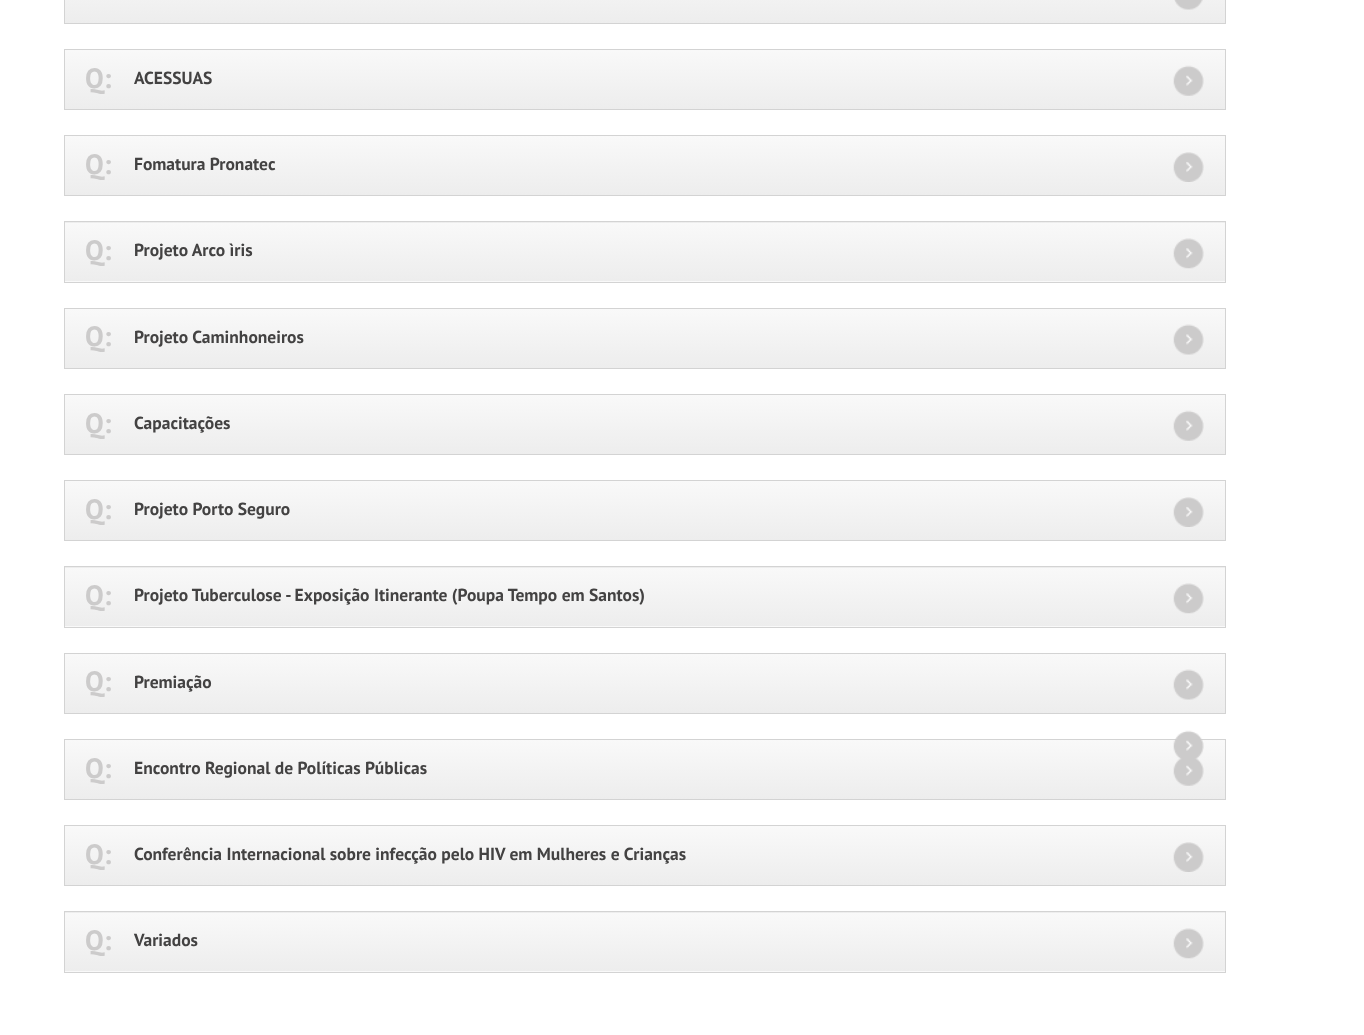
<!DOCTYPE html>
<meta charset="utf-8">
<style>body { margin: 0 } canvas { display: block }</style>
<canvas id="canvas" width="1364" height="1035"></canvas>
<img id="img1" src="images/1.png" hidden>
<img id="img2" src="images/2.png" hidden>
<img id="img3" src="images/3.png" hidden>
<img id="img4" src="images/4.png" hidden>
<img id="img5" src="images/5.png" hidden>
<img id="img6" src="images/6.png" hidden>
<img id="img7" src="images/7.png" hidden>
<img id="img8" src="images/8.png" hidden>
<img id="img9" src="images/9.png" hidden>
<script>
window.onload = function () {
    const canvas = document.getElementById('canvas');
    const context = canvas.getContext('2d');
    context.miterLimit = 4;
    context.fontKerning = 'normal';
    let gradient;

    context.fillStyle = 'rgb(255, 255, 255)';
    context.fillRect(0, 0, 1364, 1035);
    gradient = context.createLinearGradient(645, -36, 645, 23);
    gradient.addColorStop(0, 'rgb(249, 249, 249)');
    gradient.addColorStop(1, 'rgb(237, 237, 237)');
    context.fillStyle = gradient;
    context.fillRect(65, 0, 1160, 23);
    context.strokeStyle = 'rgb(211, 211, 211)';
    context.strokeRect(64.5, -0.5, 1161, 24);
    context.drawImage(document.getElementById('img1'), 1174, 0, 29, 10);
    gradient = context.createLinearGradient(645, 50, 645, 109);
    gradient.addColorStop(0, 'rgb(249, 249, 249)');
    gradient.addColorStop(1, 'rgb(237, 237, 237)');
    context.fillStyle = gradient;
    context.fillRect(65, 50, 1160, 59);
    context.strokeRect(64.5, 49.5, 1161, 60);
    context.drawImage(document.getElementById('img2'), 1173, 65, 31, 31);
    gradient = context.createLinearGradient(645, 136, 645, 195);
    gradient.addColorStop(0, 'rgb(249, 249, 249)');
    gradient.addColorStop(1, 'rgb(237, 237, 237)');
    context.fillStyle = gradient;
    context.fillRect(65, 136, 1160, 59);
    context.strokeRect(64.5, 135.5, 1161, 60);
    context.drawImage(document.getElementById('img3'), 1173, 152, 31, 30);
    gradient = context.createLinearGradient(645, 164, 645, 223);
    gradient.addColorStop(0, 'rgb(249, 249, 249)');
    gradient.addColorStop(1, 'rgb(237, 237, 237)');
    context.fillStyle = gradient;
    context.fillRect(64, 222, 1162, 1);
    gradient = context.createLinearGradient(645, 222, 645, 281);
    gradient.addColorStop(0, 'rgb(249, 249, 249)');
    gradient.addColorStop(1, 'rgb(237, 237, 237)');
    context.fillStyle = gradient;
    context.fillRect(65, 223, 1160, 58);
    gradient = context.createLinearGradient(645, 281, 645, 340);
    gradient.addColorStop(0, 'rgb(249, 249, 249)');
    gradient.addColorStop(1, 'rgb(237, 237, 237)');
    context.fillStyle = gradient;
    context.fillRect(64, 281, 1162, 1);
    context.strokeRect(64.5, 221.5, 1161, 61);
    context.drawImage(document.getElementById('img4'), 1173, 238, 31, 31);
    gradient = context.createLinearGradient(645, 309, 645, 368);
    gradient.addColorStop(0, 'rgb(249, 249, 249)');
    gradient.addColorStop(1, 'rgb(237, 237, 237)');
    context.fillStyle = gradient;
    context.fillRect(65, 309, 1160, 59);
    context.strokeRect(64.5, 308.5, 1161, 60);
    context.drawImage(document.getElementById('img5'), 1173, 324, 31, 31);
    gradient = context.createLinearGradient(645, 395, 645, 454);
    gradient.addColorStop(0, 'rgb(249, 249, 249)');
    gradient.addColorStop(1, 'rgb(237, 237, 237)');
    context.fillStyle = gradient;
    context.fillRect(65, 395, 1160, 59);
    context.strokeRect(64.5, 394.5, 1161, 60);
    context.drawImage(document.getElementById('img6'), 1173, 410, 31, 31);
    gradient = context.createLinearGradient(645, 481, 645, 540);
    gradient.addColorStop(0, 'rgb(249, 249, 249)');
    gradient.addColorStop(1, 'rgb(237, 237, 237)');
    context.fillStyle = gradient;
    context.fillRect(65, 481, 1160, 59);
    context.strokeRect(64.5, 480.5, 1161, 60);
    context.drawImage(document.getElementById('img3'), 1173, 497, 31, 30);
    gradient = context.createLinearGradient(645, 509, 645, 568);
    gradient.addColorStop(0, 'rgb(249, 249, 249)');
    gradient.addColorStop(1, 'rgb(237, 237, 237)');
    context.fillStyle = gradient;
    context.fillRect(64, 567, 1162, 1);
    gradient = context.createLinearGradient(645, 567, 645, 626);
    gradient.addColorStop(0, 'rgb(249, 249, 249)');
    gradient.addColorStop(1, 'rgb(237, 237, 237)');
    context.fillStyle = gradient;
    context.fillRect(65, 568, 1160, 58);
    gradient = context.createLinearGradient(645, 626, 645, 685);
    gradient.addColorStop(0, 'rgb(249, 249, 249)');
    gradient.addColorStop(1, 'rgb(237, 237, 237)');
    context.fillStyle = gradient;
    context.fillRect(64, 626, 1162, 1);
    context.strokeRect(64.5, 566.5, 1161, 61);
    context.drawImage(document.getElementById('img4'), 1173, 583, 31, 31);
    gradient = context.createLinearGradient(645, 654, 645, 713);
    gradient.addColorStop(0, 'rgb(249, 249, 249)');
    gradient.addColorStop(1, 'rgb(237, 237, 237)');
    context.fillStyle = gradient;
    context.fillRect(65, 654, 1160, 59);
    context.strokeRect(64.5, 653.5, 1161, 60);
    context.drawImage(document.getElementById('img5'), 1173, 669, 31, 31);
    gradient = context.createLinearGradient(645, 740, 645, 799);
    gradient.addColorStop(0, 'rgb(249, 249, 249)');
    gradient.addColorStop(1, 'rgb(237, 237, 237)');
    context.fillStyle = gradient;
    context.fillRect(65, 740, 1160, 59);
    context.strokeRect(64.5, 739.5, 1161, 60);
    context.drawImage(document.getElementById('img7'), 1173, 730, 31, 30);
    context.drawImage(document.getElementById('img8'), 1173, 758, 31, 28);
    gradient = context.createLinearGradient(645, 826, 645, 885);
    gradient.addColorStop(0, 'rgb(249, 249, 249)');
    gradient.addColorStop(1, 'rgb(237, 237, 237)');
    context.fillStyle = gradient;
    context.fillRect(65, 826, 1160, 59);
    context.strokeRect(64.5, 825.5, 1161, 60);
    context.drawImage(document.getElementById('img3'), 1173, 842, 31, 30);
    gradient = context.createLinearGradient(645, 854, 645, 913);
    gradient.addColorStop(0, 'rgb(249, 249, 249)');
    gradient.addColorStop(1, 'rgb(237, 237, 237)');
    context.fillStyle = gradient;
    context.fillRect(64, 912, 1162, 1);
    gradient = context.createLinearGradient(645, 913, 645, 971);
    gradient.addColorStop(0, 'rgb(249, 249, 249)');
    gradient.addColorStop(1, 'rgb(237, 237, 237)');
    context.fillStyle = gradient;
    context.fillRect(65, 913, 1160, 58);
    gradient = context.createLinearGradient(645, 971, 645, 1030);
    gradient.addColorStop(0, 'rgb(249, 249, 249)');
    gradient.addColorStop(1, 'rgb(237, 237, 237)');
    context.fillStyle = gradient;
    context.fillRect(64, 971, 1162, 1);
    context.strokeRect(64.5, 911.5, 1161, 61);
    context.drawImage(document.getElementById('img9'), 1173, 928, 31, 31);
    context.font = 'bold 28px PT Sans';
    context.fillStyle = 'rgb(204, 203, 203)';
    context.fillText('Q:', 85, 88);
    context.font = 'bold 17.5px PT Sans';
    context.fillStyle = 'rgb(67, 66, 66)';
    context.fillText('ACESSUAS', 134, 84);
    context.font = 'bold 28px PT Sans';
    context.fillStyle = 'rgb(204, 203, 203)';
    context.fillText('Q:', 85, 174);
    context.font = 'bold 17.5px PT Sans';
    context.fillStyle = 'rgb(67, 66, 66)';
    context.fillText('Fomatura Pronatec', 134, 170);
    context.font = 'bold 28px PT Sans';
    context.fillStyle = 'rgb(204, 203, 203)';
    context.fillText('Q:', 85, 260);
    context.font = 'bold 17.5px PT Sans';
    context.fillStyle = 'rgb(67, 66, 66)';
    context.fillText('Projeto Arco ìris', 134, 256);
    context.font = 'bold 28px PT Sans';
    context.fillStyle = 'rgb(204, 203, 203)';
    context.fillText('Q:', 85, 346);
    context.font = 'bold 17.5px PT Sans';
    context.fillStyle = 'rgb(67, 66, 66)';
    context.fillText('Projeto Caminhoneiros', 134, 343);
    context.font = 'bold 28px PT Sans';
    context.fillStyle = 'rgb(204, 203, 203)';
    context.fillText('Q:', 85, 433);
    context.font = 'bold 17.5px PT Sans';
    context.fillStyle = 'rgb(67, 66, 66)';
    context.fillText('Capacitações', 134, 429);
    context.font = 'bold 28px PT Sans';
    context.fillStyle = 'rgb(204, 203, 203)';
    context.fillText('Q:', 85, 519);
    context.font = 'bold 17.5px PT Sans';
    context.fillStyle = 'rgb(67, 66, 66)';
    context.fillText('Projeto Porto Seguro', 134, 515);
    context.font = 'bold 28px PT Sans';
    context.fillStyle = 'rgb(204, 203, 203)';
    context.fillText('Q:', 85, 605);
    context.font = 'bold 17.5px PT Sans';
    context.fillStyle = 'rgb(67, 66, 66)';
    context.fillText('Projeto Tuberculose - Exposição Itinerante (Poupa Tempo em Santos)', 134, 601);
    context.font = 'bold 28px PT Sans';
    context.fillStyle = 'rgb(204, 203, 203)';
    context.fillText('Q:', 85, 691);
    context.font = 'bold 17.5px PT Sans';
    context.fillStyle = 'rgb(67, 66, 66)';
    context.fillText('Premiação', 134, 688);
    context.font = 'bold 28px PT Sans';
    context.fillStyle = 'rgb(204, 203, 203)';
    context.fillText('Q:', 85, 778);
    context.font = 'bold 17.5px PT Sans';
    context.fillStyle = 'rgb(67, 66, 66)';
    context.fillText('Encontro Regional de Políticas Públicas', 134, 774);
    context.font = 'bold 28px PT Sans';
    context.fillStyle = 'rgb(204, 203, 203)';
    context.fillText('Q:', 85, 864);
    context.font = 'bold 17.5px PT Sans';
    context.fillStyle = 'rgb(67, 66, 66)';
    context.fillText('Conferência Internacional sobre infecção pelo HIV em Mulheres e Crianças', 134, 860);
    context.font = 'bold 28px PT Sans';
    context.fillStyle = 'rgb(204, 203, 203)';
    context.fillText('Q:', 85, 950);
    context.font = 'bold 17.5px PT Sans';
    context.fillStyle = 'rgb(67, 66, 66)';
    context.fillText('Variados', 134, 946);
};
</script>
